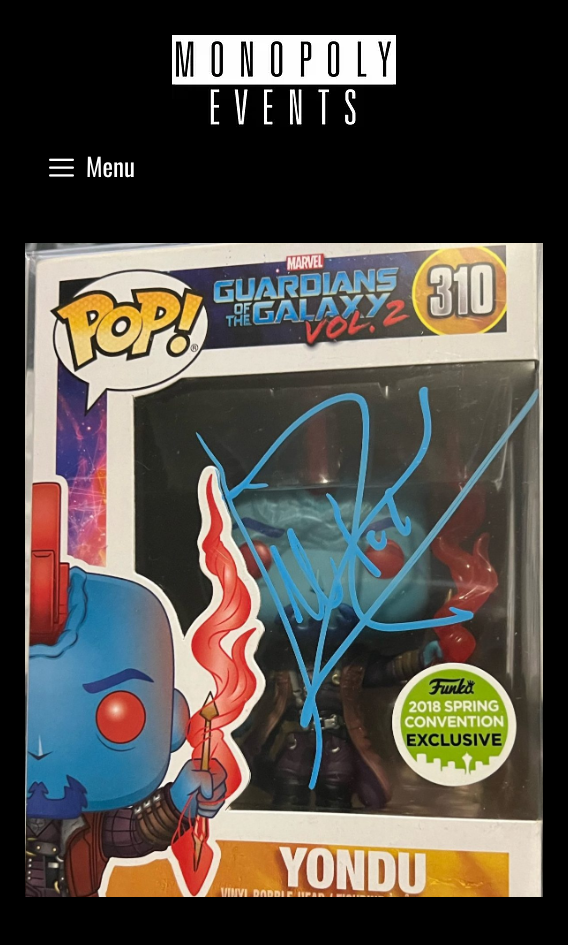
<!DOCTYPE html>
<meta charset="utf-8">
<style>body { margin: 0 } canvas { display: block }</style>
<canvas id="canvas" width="568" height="945"></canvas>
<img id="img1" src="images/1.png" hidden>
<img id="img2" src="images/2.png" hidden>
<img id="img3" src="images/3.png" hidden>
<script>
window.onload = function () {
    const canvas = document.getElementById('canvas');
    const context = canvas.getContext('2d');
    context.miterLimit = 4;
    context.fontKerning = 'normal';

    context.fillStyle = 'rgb(0, 0, 0)';
    context.fillRect(0, 0, 568, 945);
    context.drawImage(document.getElementById('img1'), 172, 35, 224, 92);
    context.drawImage(document.getElementById('img2'), 49, 158, 25, 19);
    context.drawImage(document.getElementById('img3'), 25, 243, 518, 654);
    context.font = '25px Oswald';
    context.fillStyle = 'rgb(255, 255, 255)';
    context.fillText('Menu', 86, 177);
};
</script>
